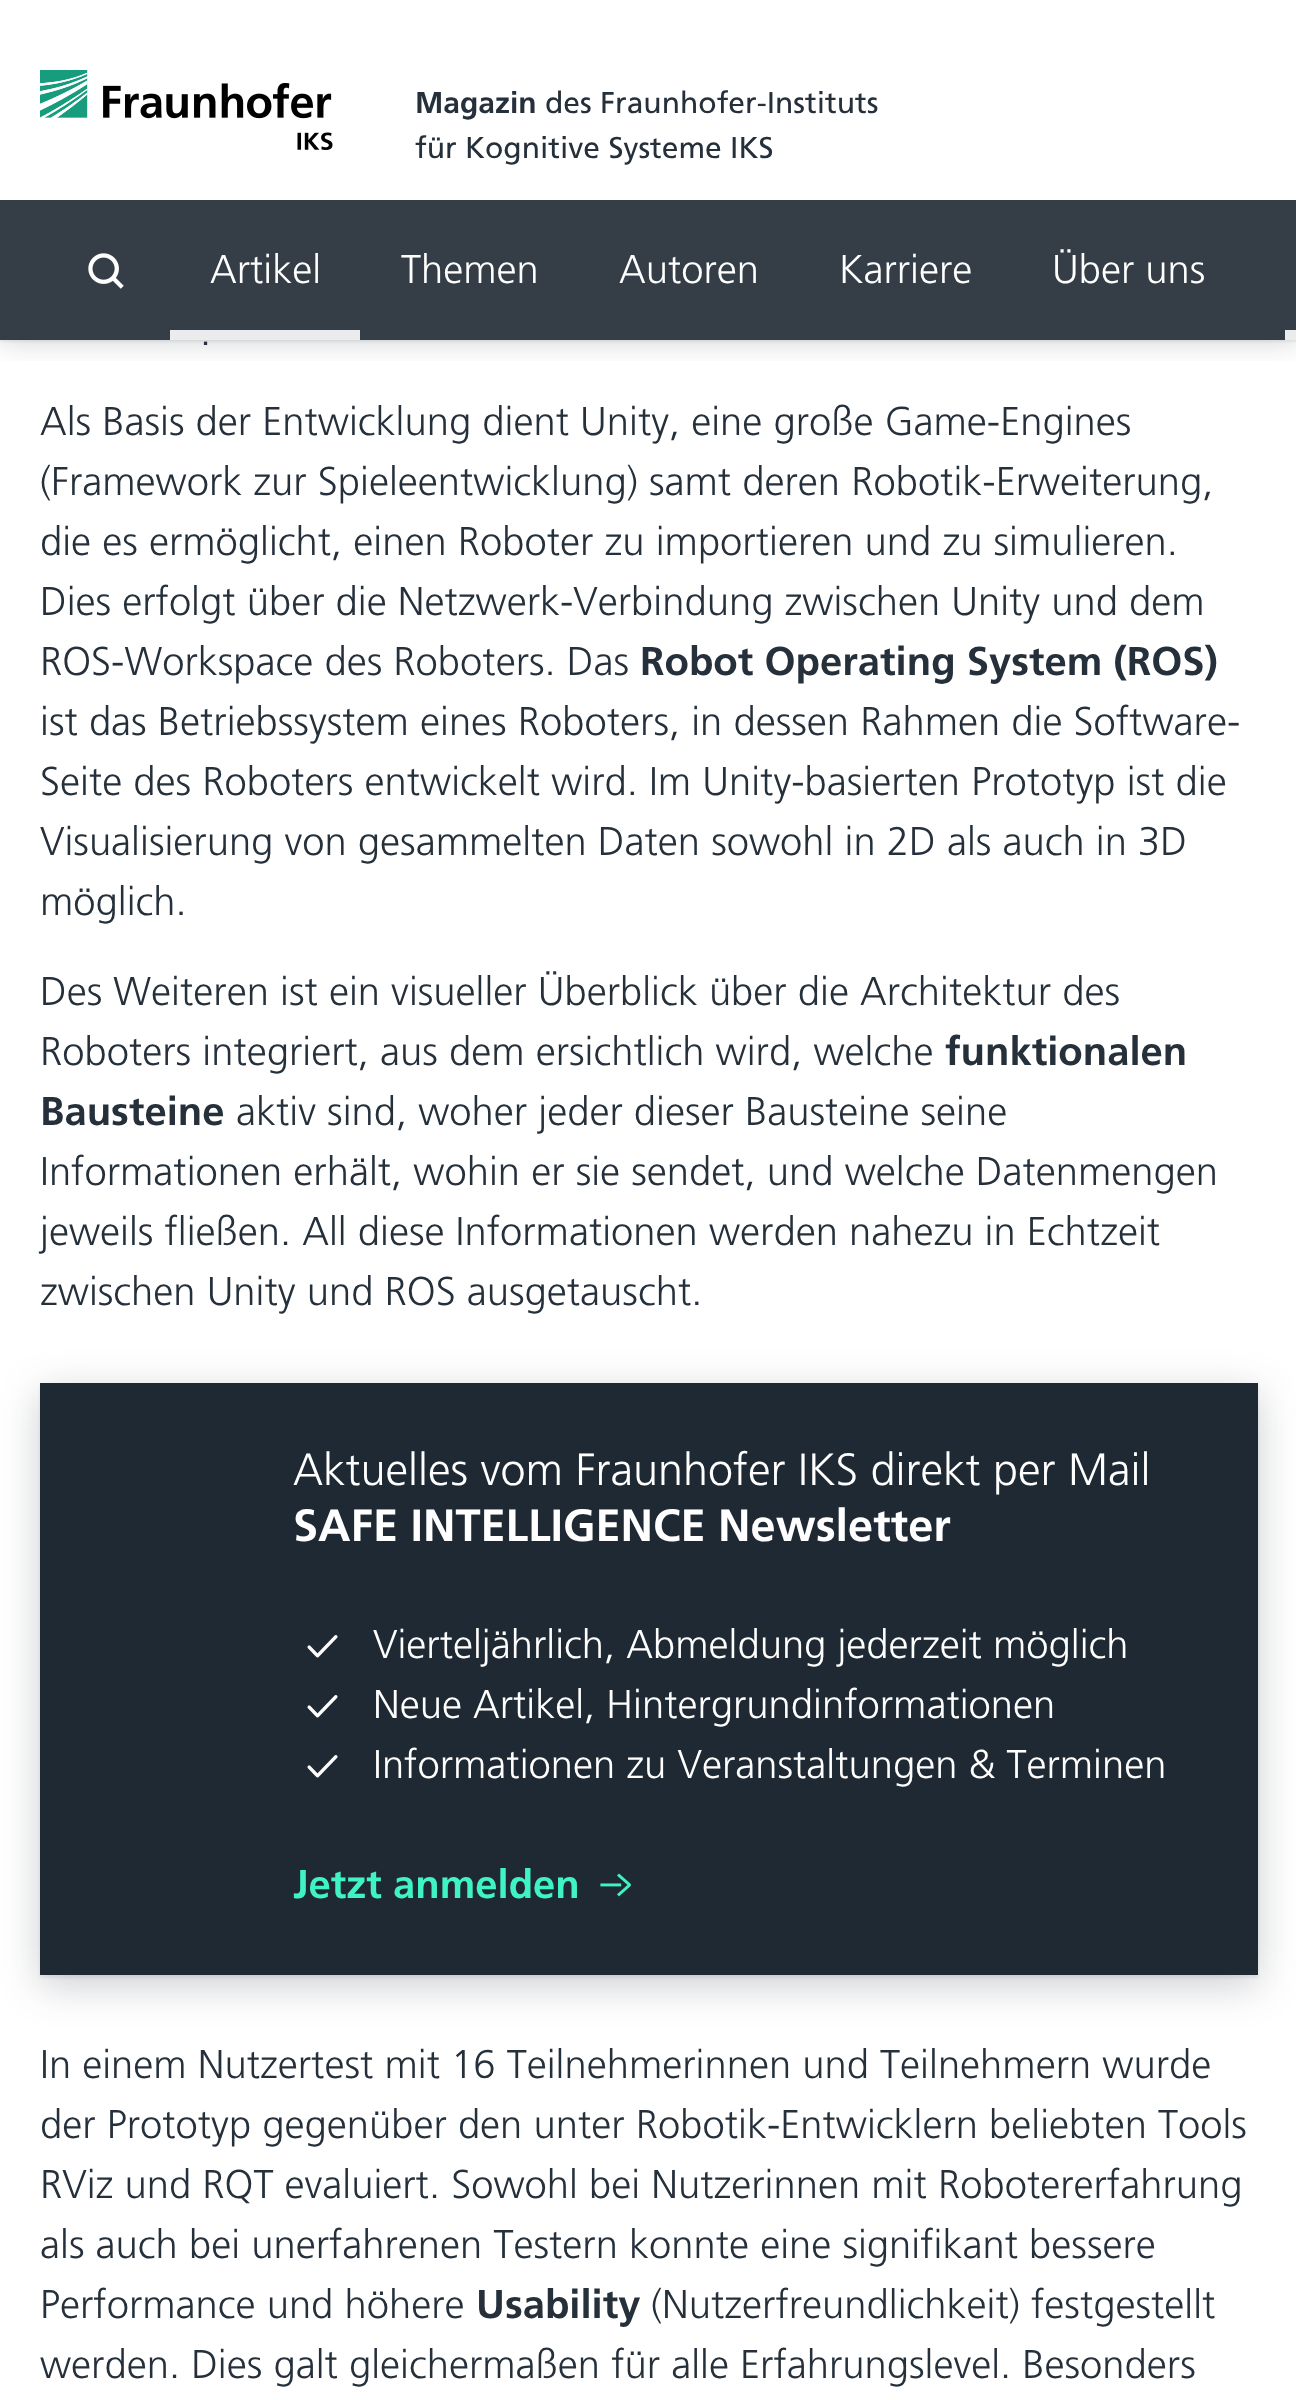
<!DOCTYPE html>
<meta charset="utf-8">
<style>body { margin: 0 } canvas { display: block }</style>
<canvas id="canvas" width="1296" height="2400"></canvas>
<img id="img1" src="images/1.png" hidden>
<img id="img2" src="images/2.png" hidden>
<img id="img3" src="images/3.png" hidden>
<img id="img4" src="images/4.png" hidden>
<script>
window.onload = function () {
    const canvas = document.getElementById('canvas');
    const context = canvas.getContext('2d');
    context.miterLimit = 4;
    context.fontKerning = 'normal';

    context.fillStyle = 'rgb(255, 255, 255)';
    context.fillRect(0, 0, 1296, 2400);
    context.save();
    context.beginPath();
    context.rect(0, 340, 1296, 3);
    context.clip();
    context.fillStyle = 'rgba(37, 48, 59, 0.16)';
    context.filter = 'blur(2.5px)';
    context.beginPath();
    context.rect(0, 0, 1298, 340);
    context.fill();
    context.filter = 'none';
    context.restore();
    context.save();
    context.beginPath();
    context.rect(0, 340, 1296, 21);
    context.clip();
    context.fillStyle = 'rgba(37, 48, 59, 0.24)';
    context.filter = 'blur(15px)';
    context.beginPath();
    context.rect(0, 0, 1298, 340);
    context.fill();
    context.filter = 'none';
    context.restore();
    context.drawImage(document.getElementById('img1'), 40, 70, 293, 80);
    context.fillStyle = 'rgba(31, 41, 51, 0.9)';
    context.fillRect(0, 200, 1296, 140);
    context.drawImage(document.getElementById('img2'), 88, 253, 36, 36);
    context.fillStyle = 'rgba(255, 255, 255, 0.9)';
    context.fillRect(170, 330, 190, 10);
    context.fillStyle = 'rgb(235, 236, 237)';
    context.fillRect(1285, 330, 11, 10);
    context.fillStyle = 'rgb(31, 41, 51)';
    context.fillRect(40, 1383, 1218, 592);
    context.save();
    context.beginPath();
    context.moveTo(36, 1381);
    context.lineTo(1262, 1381);
    context.lineTo(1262, 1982);
    context.lineTo(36, 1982);
    context.closePath();
    context.moveTo(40, 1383);
    context.lineTo(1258, 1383);
    context.lineTo(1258, 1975);
    context.lineTo(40, 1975);
    context.closePath();
    context.clip('evenodd');
    context.fillStyle = 'rgba(37, 48, 59, 0.08)';
    context.filter = 'blur(1px)';
    context.beginPath();
    context.rect(40, 1385, 1218, 593);
    context.fill();
    context.filter = 'none';
    context.restore();
    context.save();
    context.beginPath();
    context.moveTo(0, 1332);
    context.lineTo(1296, 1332);
    context.lineTo(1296, 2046);
    context.lineTo(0, 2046);
    context.closePath();
    context.moveTo(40, 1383);
    context.lineTo(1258, 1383);
    context.lineTo(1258, 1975);
    context.lineTo(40, 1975);
    context.closePath();
    context.clip('evenodd');
    context.fillStyle = 'rgba(37, 48, 59, 0.24)';
    context.filter = 'blur(20px)';
    context.beginPath();
    context.rect(40, 1393, 1218, 592);
    context.fill();
    context.filter = 'none';
    context.restore();
    context.drawImage(document.getElementById('img3'), 307, 1635, 31, 23);
    context.drawImage(document.getElementById('img3'), 307, 1695, 31, 23);
    context.drawImage(document.getElementById('img3'), 307, 1755, 31, 23);
    context.drawImage(document.getElementById('img4'), 600, 1873, 31, 24);
    context.font = '30px "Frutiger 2"';
    context.fillStyle = 'rgb(37, 48, 59)';
    context.fillText('Magazin', 415, 113);
    context.font = '30px "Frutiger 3"';
    context.fillText('des Fraunhofer-Instituts', 545, 113);
    context.fillText('für Kognitive Systeme IKS', 415, 158);
    context.font = '40px Frutiger';
    context.fillStyle = 'rgb(255, 255, 255)';
    context.fillText('Artikel', 210, 283);
    context.fillText('Themen', 401, 283);
    context.fillText('Autoren', 619, 283);
    context.fillText('Karriere', 839, 283);
    context.fillText('Über uns', 1052, 283);
    context.fillStyle = 'rgb(37, 48, 59)';
    context.fillText('.', 200, 345);
    context.fillText('Als Basis der Entwicklung dient Unity, eine große Game-Engines', 40, 435);
    context.fillText('(Framework zur Spieleentwicklung) samt deren Robotik-Erweiterung,', 40, 495);
    context.fillText('die es ermöglicht, einen Roboter zu importieren und zu simulieren.', 40, 555);
    context.fillText('Dies erfolgt über die Netzwerk-Verbindung zwischen Unity und dem', 40, 615);
    context.fillText('ROS-Workspace des Roboters. Das', 40, 675);
    context.font = '40px "Frutiger 2"';
    context.fillText('Robot Operating System (ROS)', 640, 675);
    context.font = '40px Frutiger';
    context.fillText('ist das Betriebssystem eines Roboters, in dessen Rahmen die Software-', 40, 735);
    context.fillText('Seite des Roboters entwickelt wird. Im Unity-basierten Prototyp ist die', 40, 795);
    context.fillText('Visualisierung von gesammelten Daten sowohl in 2D als auch in 3D', 40, 855);
    context.fillText('möglich.', 40, 915);
    context.fillText('Des Weiteren ist ein visueller Überblick über die Architektur des', 40, 1005);
    context.fillText('Roboters integriert, aus dem ersichtlich wird, welche', 40, 1065);
    context.font = '40px "Frutiger 2"';
    context.fillText('funktionalen', 945, 1065);
    context.fillText('Bausteine', 40, 1125);
    context.font = '40px Frutiger';
    context.fillText('aktiv sind, woher jeder dieser Bausteine seine', 236, 1125);
    context.fillText('Informationen erhält, wohin er sie sendet, und welche Datenmengen', 40, 1185);
    context.fillText('jeweils fließen. All diese Informationen werden nahezu in Echtzeit', 40, 1245);
    context.fillText('zwischen Unity und ROS ausgetauscht.', 40, 1305);
    context.font = '45px Frutiger';
    context.fillStyle = 'rgb(255, 255, 255)';
    context.fillText('Aktuelles vom Fraunhofer IKS direkt per Mail', 293, 1485);
    context.font = '45px "Frutiger 2"';
    context.fillText('SAFE INTELLIGENCE Newsletter', 293, 1541);
    context.font = '40px Frutiger';
    context.fillText('Vierteljährlich, Abmeldung jederzeit möglich', 373, 1658);
    context.fillText('Neue Artikel, Hintergrundinformationen', 373, 1718);
    context.fillText('Informationen zu Veranstaltungen & Terminen', 373, 1778);
    context.font = '40px "Frutiger 2"';
    context.fillStyle = 'rgb(64, 243, 197)';
    context.fillText('Jetzt anmelden', 293, 1898);
    context.font = '40px Frutiger';
    context.fillStyle = 'rgb(37, 48, 59)';
    context.fillText('In einem Nutzertest mit 16 Teilnehmerinnen und Teilnehmern wurde', 40, 2078);
    context.fillText('der Prototyp gegenüber den unter Robotik-Entwicklern beliebten Tools', 40, 2138);
    context.fillText('RViz und RQT evaluiert. Sowohl bei Nutzerinnen mit Robotererfahrung', 40, 2198);
    context.fillText('als auch bei unerfahrenen Testern konnte eine signifikant bessere', 40, 2258);
    context.fillText('Performance und höhere', 40, 2318);
    context.font = '40px "Frutiger 2"';
    context.fillText('Usability', 476, 2318);
    context.font = '40px Frutiger';
    context.fillText('(Nutzerfreundlichkeit) festgestellt', 651, 2318);
    context.fillText('werden. Dies galt gleichermaßen für alle Erfahrungslevel. Besonders', 40, 2378);
};
</script>
